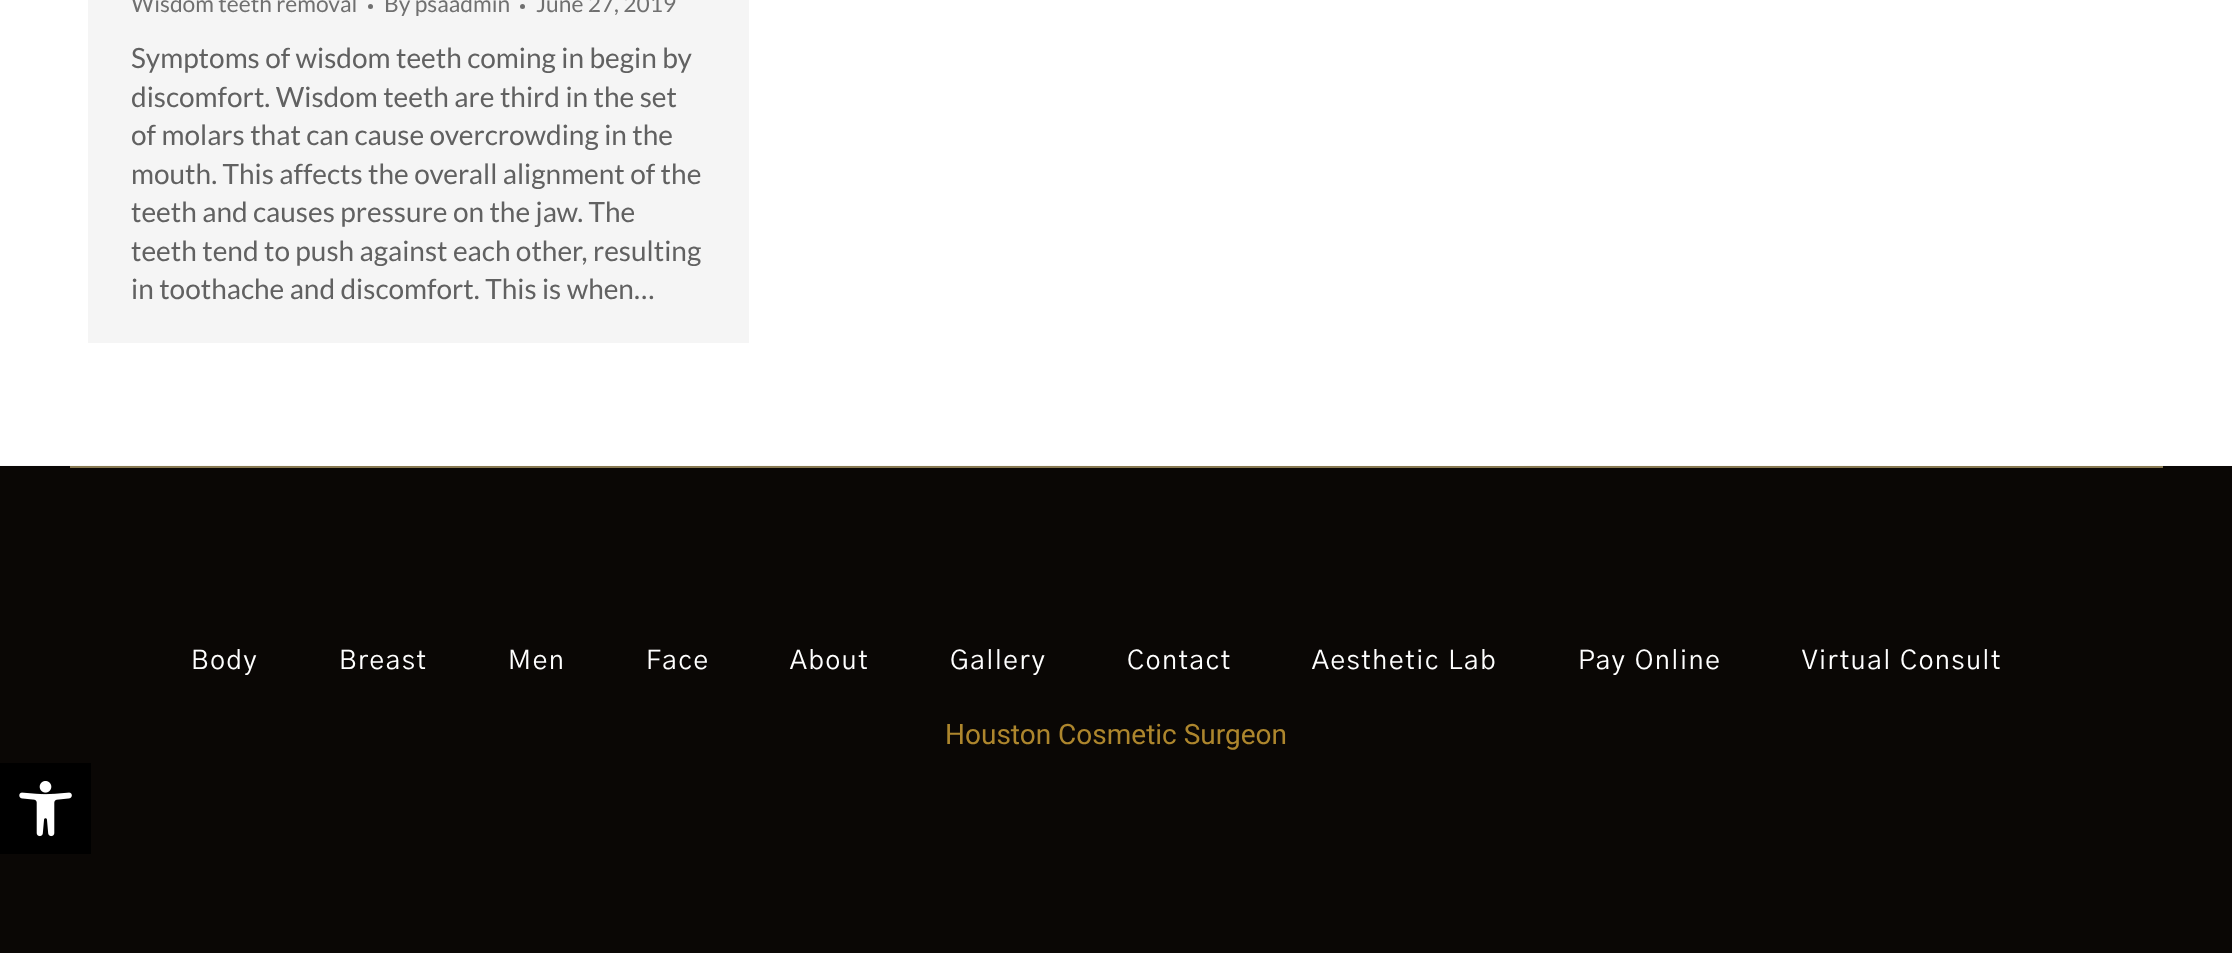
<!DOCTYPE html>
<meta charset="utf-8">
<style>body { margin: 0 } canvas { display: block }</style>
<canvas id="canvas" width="2232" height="953"></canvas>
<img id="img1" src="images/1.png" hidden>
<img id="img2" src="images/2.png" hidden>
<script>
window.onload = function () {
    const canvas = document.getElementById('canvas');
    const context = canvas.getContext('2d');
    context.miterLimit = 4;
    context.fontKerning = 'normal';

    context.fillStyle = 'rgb(255, 255, 255)';
    context.fillRect(0, 0, 2232, 953);
    context.fillStyle = 'rgb(245, 245, 245)';
    context.fillRect(88, 0, 661, 343);
    context.fillStyle = 'rgb(112, 112, 112)';
    context.beginPath();
    context.arc(370.5, 6.5, 2.5, 0, 2 * Math.PI);
    context.fill();
    context.beginPath();
    context.arc(522.5, 6.5, 2.5, 0, 2 * Math.PI);
    context.fill();
    context.drawImage(document.getElementById('img1'), 0, 465, 2232, 1);
    context.fillStyle = 'rgb(10, 7, 5)';
    context.fillRect(0, 466, 2232, 487);
    context.fillStyle = 'rgb(135, 120, 80)';
    context.fillRect(70, 466, 2093, 2);
    context.fillStyle = 'rgb(0, 0, 0)';
    context.fillRect(0, 763, 91, 91);
    context.drawImage(document.getElementById('img2'), 19, 781, 53, 56);
    context.font = '22.75px Lato';
    context.fillStyle = 'rgb(112, 112, 112)';
    context.fillText('Wisdom teeth removal', 131, 12);
    context.fillText('By psaadmin', 384, 12);
    context.fillText('June 27, 2019', 536, 12);
    context.font = '28px Lato';
    context.fillStyle = 'rgb(97, 97, 97)';
    context.fillText('Symptoms of wisdom teeth coming in begin by', 131, 68);
    context.fillText('discomfort. Wisdom teeth are third in the set', 131, 107);
    context.fillText('of molars that can cause overcrowding in the', 131, 145);
    context.fillText('mouth. This affects the overall alignment of the', 131, 184);
    context.fillText('teeth and causes pressure on the jaw. The', 131, 222);
    context.fillText('teeth tend to push against each other, resulting', 131, 261);
    context.fillText('in toothache and discomfort. This is when…', 131, 299);
    context.letterSpacing = '1.75px';
    context.font = '26.25px "Gothic A1"';
    context.fillStyle = 'rgb(255, 255, 255)';
    context.fillText('Body', 191, 669);
    context.fillText('Breast', 339, 669);
    context.fillText('Men', 508, 669);
    context.fillText('Face', 646, 669);
    context.fillText('About', 790, 669);
    context.fillText('Gallery', 950, 669);
    context.fillText('Contact', 1127, 669);
    context.fillText('Aesthetic Lab', 1312, 669);
    context.fillText('Pay Online', 1578, 669);
    context.fillText('Virtual Consult', 1802, 669);
    context.letterSpacing = '0px';
    context.font = '28px Roboto';
    context.fillStyle = 'rgb(173, 134, 45)';
    context.fillText('Houston Cosmetic Surgeon', 945, 744);
};
</script>
